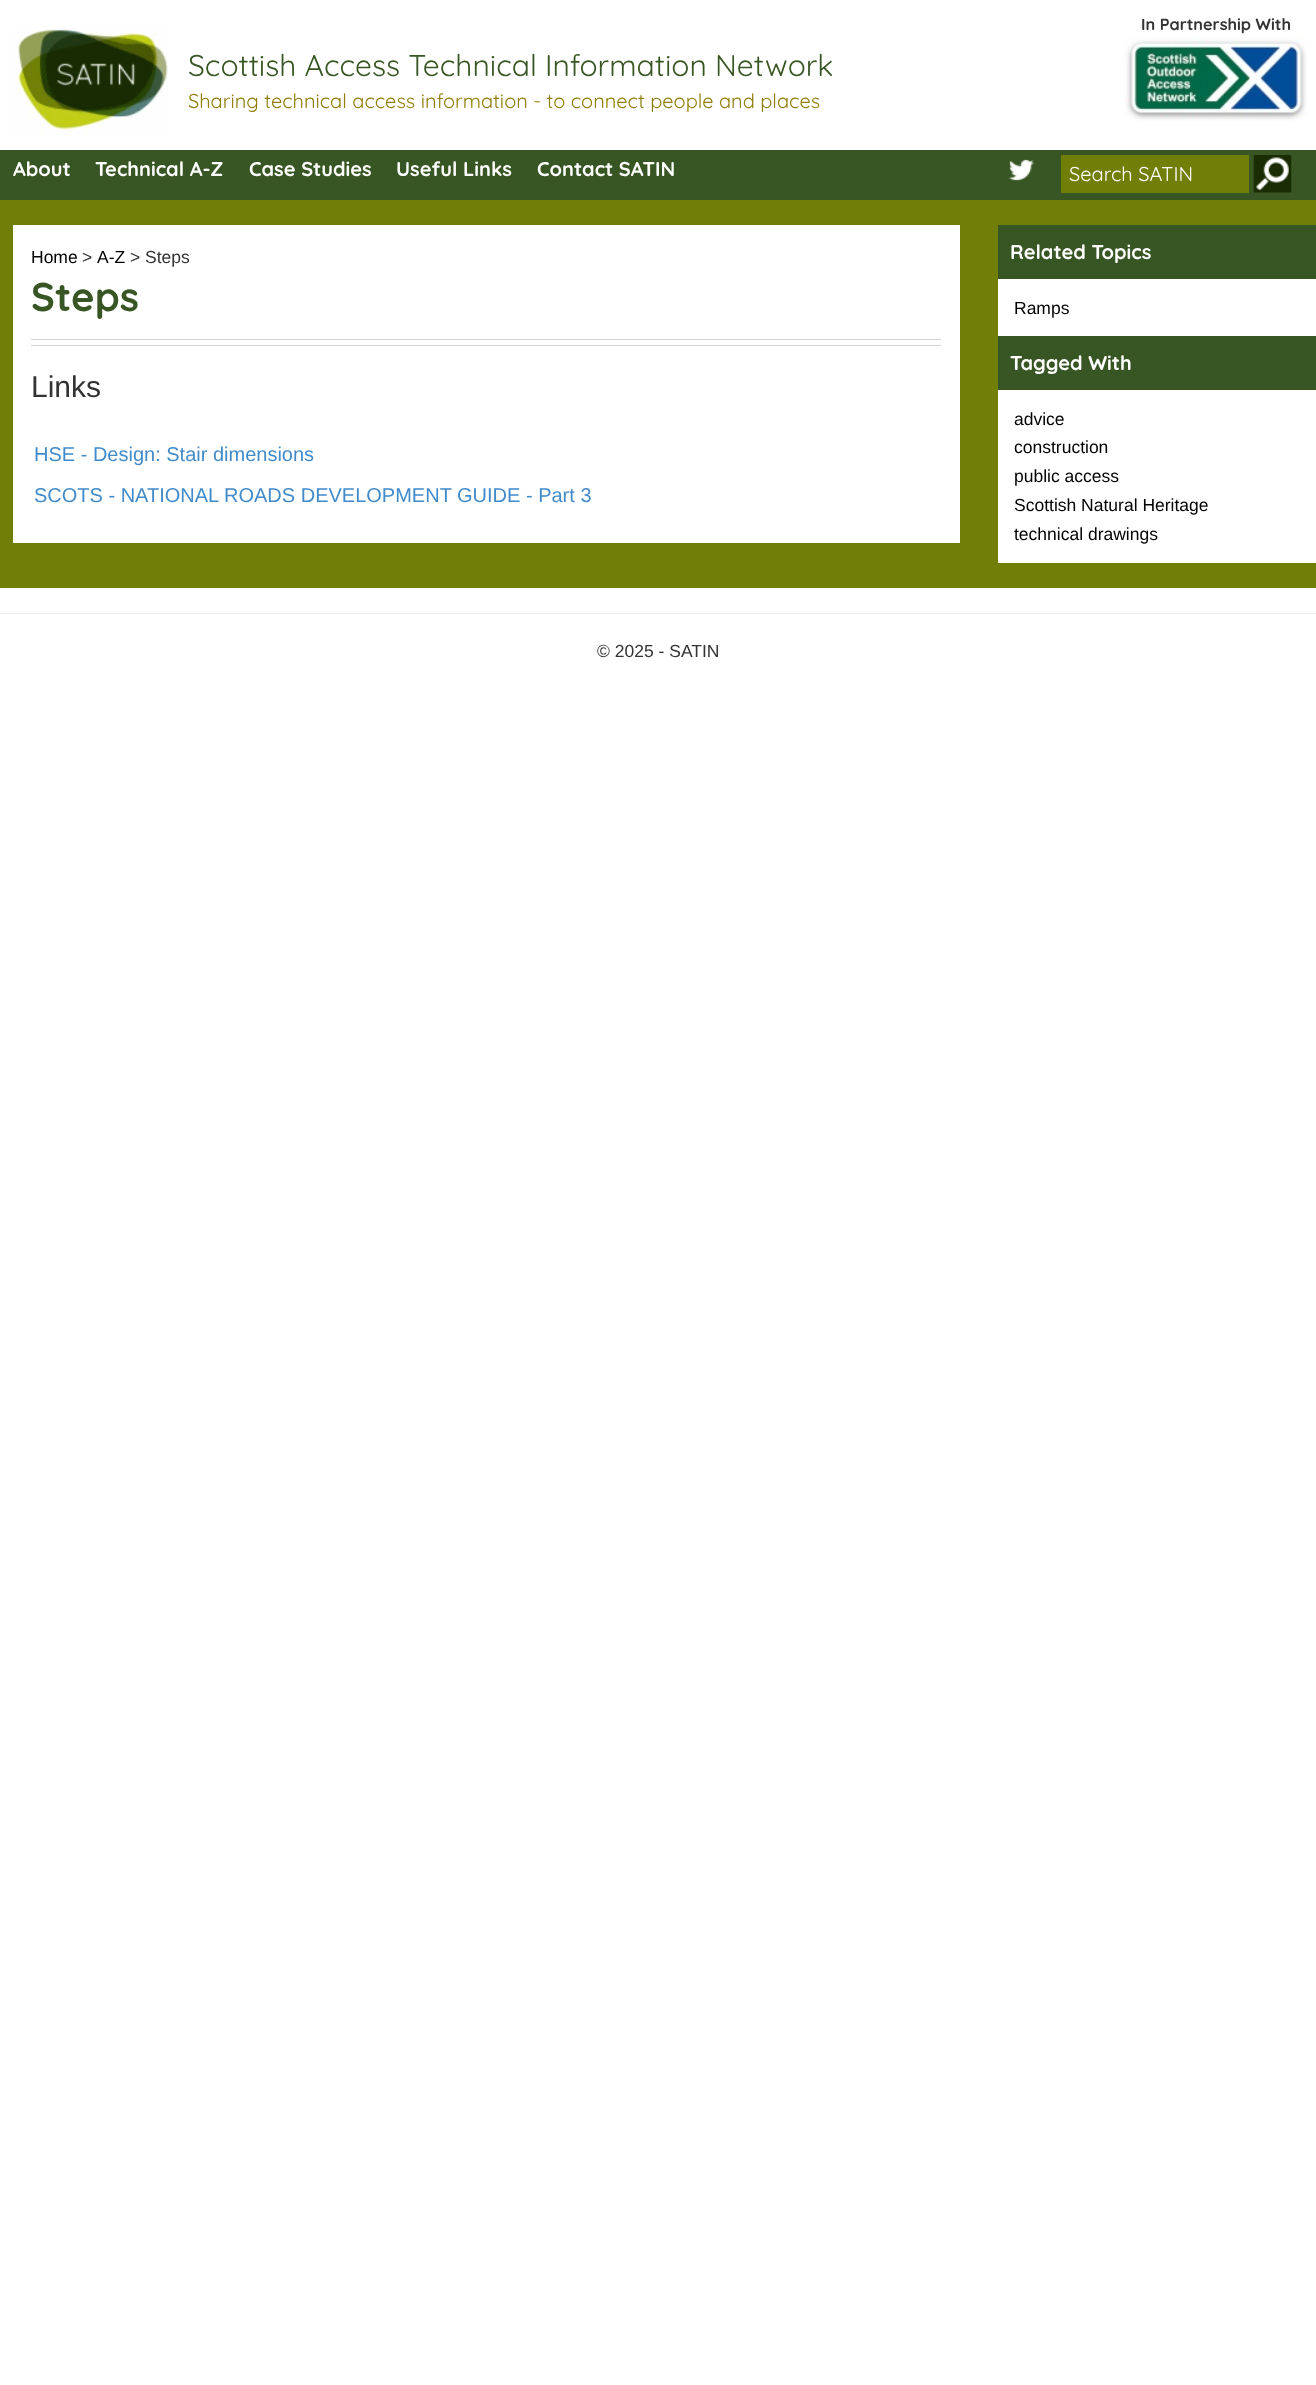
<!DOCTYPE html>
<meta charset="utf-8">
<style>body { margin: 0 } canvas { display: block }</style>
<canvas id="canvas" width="1316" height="2385"></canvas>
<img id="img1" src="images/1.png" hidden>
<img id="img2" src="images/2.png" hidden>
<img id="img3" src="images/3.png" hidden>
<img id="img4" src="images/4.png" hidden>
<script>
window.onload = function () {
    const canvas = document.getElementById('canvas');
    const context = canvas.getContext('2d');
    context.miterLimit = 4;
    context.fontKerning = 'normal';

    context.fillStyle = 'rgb(255, 255, 255)';
    context.fillRect(0, 0, 1316, 2385);
    context.drawImage(document.getElementById('img1'), 1123, 36, 184, 85);
    context.drawImage(document.getElementById('img2'), 12, 29, 157, 106);
    context.fillStyle = 'rgb(56, 86, 35)';
    context.fillRect(0, 150, 1316, 50);
    context.drawImage(document.getElementById('img3'), 1008, 159, 26, 22);
    context.fillStyle = 'rgb(113, 126, 8)';
    context.fillRect(1061, 155, 188, 38);
    context.drawImage(document.getElementById('img4'), 1253, 155, 39, 38);
    context.fillRect(0, 200, 1316, 388);
    context.fillStyle = 'rgb(255, 255, 255)';
    context.fillRect(13, 225, 947, 318);
    context.fillStyle = 'rgb(211, 211, 211)';
    context.fillRect(31, 339, 910, 1);
    context.fillRect(31, 345, 910, 1);
    context.fillStyle = 'rgb(255, 255, 255)';
    context.fillRect(998, 279, 318, 284);
    context.fillStyle = 'rgb(56, 86, 35)';
    context.fillRect(998, 225, 318, 54);
    context.fillRect(998, 336, 318, 54);
    context.fillStyle = 'rgb(238, 238, 238)';
    context.fillRect(0, 613, 1316, 1);
    context.font = 'bold 16.25px Quicksand';
    context.fillStyle = 'rgb(51, 51, 51)';
    context.fillText('In Partnership With', 1141, 30);
    context.font = '30px Quicksand';
    context.fillStyle = 'rgb(56, 86, 35)';
    context.fillText('Scottish Access Technical Information Network', 188, 76);
    context.font = '20px Quicksand';
    context.fillStyle = 'rgb(143, 126, 8)';
    context.fillText('Sharing technical access information - to connect people and places', 188, 108);
    context.font = 'bold 20px Quicksand';
    context.fillStyle = 'rgb(255, 255, 255)';
    context.fillText('About', 13, 176);
    context.fillText('Technical A-Z', 95, 176);
    context.fillText('Case Studies', 249, 176);
    context.fillText('Useful Links', 396, 176);
    context.fillText('Contact SATIN', 537, 176);
    context.font = '20px Quicksand';
    context.fillText('Search SATIN', 1069, 181);
    context.font = '17.5px Liberation Sans';
    context.fillStyle = 'rgb(0, 0, 0)';
    context.fillText('Home', 31, 263);
    context.fillStyle = 'rgb(51, 51, 51)';
    context.fillText('>', 82, 263);
    context.fillStyle = 'rgb(0, 0, 0)';
    context.fillText('A-Z', 97, 263);
    context.fillStyle = 'rgb(51, 51, 51)';
    context.fillText('> Steps', 130, 263);
    context.font = 'bold 40px Quicksand';
    context.fillStyle = 'rgb(56, 86, 35)';
    context.fillText('Steps', 31, 311);
    context.font = '30px Liberation Sans';
    context.fillStyle = 'rgb(51, 51, 51)';
    context.fillText('Links', 31, 397);
    context.font = '20px Liberation Sans';
    context.fillStyle = 'rgb(66, 139, 202)';
    context.fillText('HSE - Design: Stair dimensions', 34, 461);
    context.fillText('SCOTS - NATIONAL ROADS DEVELOPMENT GUIDE - Part 3', 34, 502);
    context.font = 'bold 20px Quicksand';
    context.fillStyle = 'rgb(255, 255, 255)';
    context.fillText('Related Topics', 1010, 259);
    context.font = '17.5px Liberation Sans';
    context.fillStyle = 'rgb(0, 0, 0)';
    context.fillText('Ramps', 1014, 314);
    context.font = 'bold 20px Quicksand';
    context.fillStyle = 'rgb(255, 255, 255)';
    context.fillText('Tagged With', 1010, 370);
    context.font = '17.5px Liberation Sans';
    context.fillStyle = 'rgb(0, 0, 0)';
    context.fillText('advice', 1014, 425);
    context.fillText('construction', 1014, 453);
    context.fillText('public access', 1014, 482);
    context.fillText('Scottish Natural Heritage', 1014, 511);
    context.fillText('technical drawings', 1014, 540);
    context.fillStyle = 'rgb(51, 51, 51)';
    context.fillText('© 2025 - SATIN', 597, 657);
};
</script>
